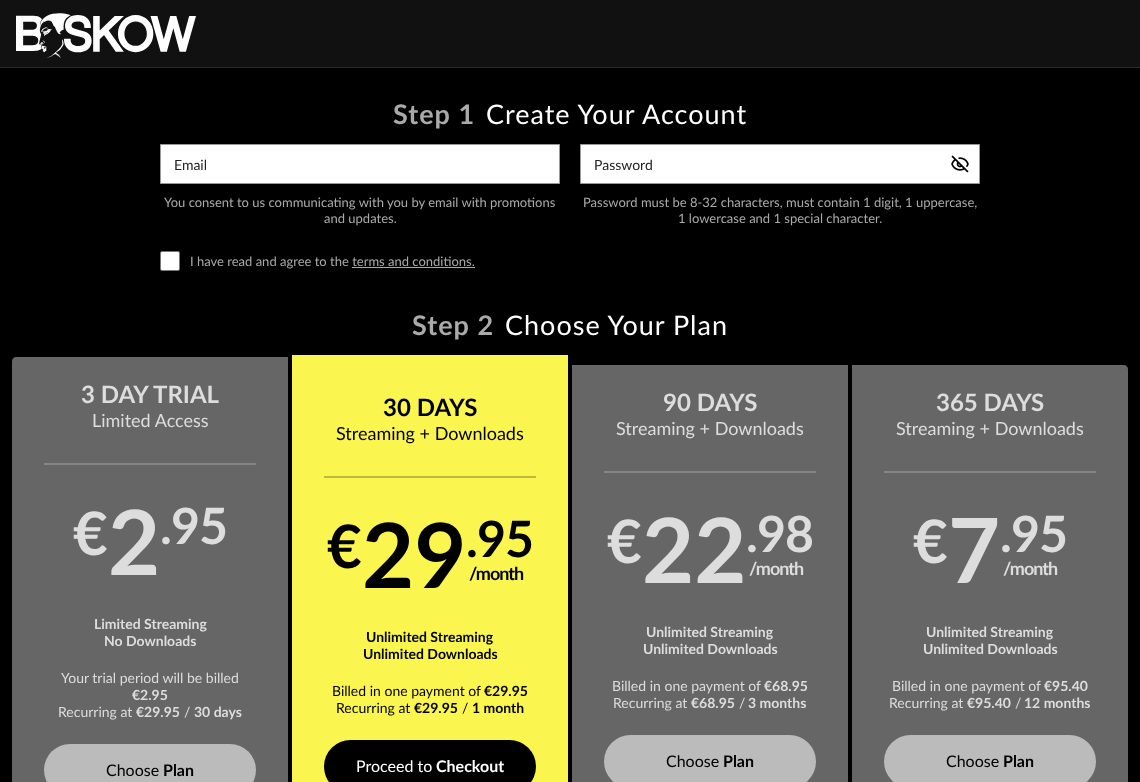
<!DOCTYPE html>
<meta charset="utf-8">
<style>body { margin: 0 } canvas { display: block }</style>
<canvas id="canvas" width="1140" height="782"></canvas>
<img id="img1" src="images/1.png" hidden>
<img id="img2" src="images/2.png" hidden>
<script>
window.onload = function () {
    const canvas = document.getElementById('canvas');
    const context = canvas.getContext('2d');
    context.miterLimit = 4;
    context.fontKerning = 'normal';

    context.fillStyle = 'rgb(0, 0, 0)';
    context.fillRect(0, 0, 1140, 782);
    context.fillStyle = 'rgb(17, 17, 17)';
    context.fillRect(0, 0, 1140, 67);
    context.fillStyle = 'rgb(41, 41, 41)';
    context.fillRect(0, 67, 1140, 1);
    context.drawImage(document.getElementById('img1'), 16, 13, 180, 45);
    context.fillStyle = 'rgb(255, 255, 255)';
    context.beginPath();
    context.rect(160.5, 144.5, 399, 39);
    context.fill();
    context.strokeStyle = 'rgb(153, 153, 153)';
    context.stroke();
    context.beginPath();
    context.rect(580.5, 144.5, 399, 39);
    context.fill();
    context.stroke();
    context.drawImage(document.getElementById('img2'), 951, 155, 18, 18);
    context.beginPath();
    context.roundRect(160.5, 251.5, 19, 19, 1.5);
    context.fill();
    context.strokeStyle = 'rgb(118, 118, 118)';
    context.stroke();
    context.fillStyle = 'rgb(170, 170, 170)';
    context.fillRect(352, 267, 123, 1);
    context.fillStyle = 'rgb(102, 102, 102)';
    context.beginPath();
    context.moveTo(16, 357);
    context.lineTo(288, 357);
    context.lineTo(288, 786);
    context.lineTo(16, 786);
    context.bezierCurveTo(14, 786, 12, 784, 12, 782);
    context.lineTo(12, 361);
    context.bezierCurveTo(12, 359, 14, 357, 16, 357);
    context.closePath();
    context.fill();
    context.fillStyle = 'rgb(133, 133, 133)';
    context.fillRect(44, 463, 212, 2);
    context.fillStyle = 'rgb(187, 187, 187)';
    context.beginPath();
    context.roundRect(44, 744, 212, 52, 26);
    context.fill();
    context.fillStyle = 'rgb(251, 246, 79)';
    context.fillRect(292, 355, 276, 427);
    context.fillStyle = 'rgb(188, 185, 59)';
    context.fillRect(324, 476, 212, 2);
    context.fillStyle = 'rgb(0, 0, 0)';
    context.beginPath();
    context.roundRect(324, 740, 212, 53, 26.5);
    context.fill();
    context.fillStyle = 'rgb(102, 102, 102)';
    context.fillRect(572, 365, 276, 417);
    context.fillStyle = 'rgb(133, 133, 133)';
    context.fillRect(604, 471, 212, 2);
    context.fillStyle = 'rgb(187, 187, 187)';
    context.beginPath();
    context.roundRect(604, 735, 212, 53, 26.5);
    context.fill();
    context.fillStyle = 'rgb(102, 102, 102)';
    context.beginPath();
    context.moveTo(852, 365);
    context.lineTo(1124, 365);
    context.bezierCurveTo(1126, 365, 1128, 367, 1128, 369);
    context.lineTo(1128, 782);
    context.bezierCurveTo(1128, 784, 1126, 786, 1124, 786);
    context.lineTo(852, 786);
    context.closePath();
    context.fill();
    context.fillStyle = 'rgb(133, 133, 133)';
    context.fillRect(884, 471, 212, 2);
    context.fillStyle = 'rgb(187, 187, 187)';
    context.beginPath();
    context.roundRect(884, 735, 212, 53, 26.5);
    context.fill();
    context.letterSpacing = '1px';
    context.font = 'bold 27px Lato';
    context.fillStyle = 'rgb(170, 170, 170)';
    context.fillText('Step 1', 393, 124);
    context.font = '27px Lato';
    context.fillStyle = 'rgb(255, 255, 255)';
    context.fillText('Create Your Account', 486, 124);
    context.letterSpacing = '0px';
    context.font = '14px Lato';
    context.fillStyle = 'rgb(34, 34, 34)';
    context.fillText('Email', 174, 170);
    context.font = '13px Lato';
    context.fillStyle = 'rgb(170, 170, 170)';
    context.fillText('You consent to us communicating with you by email with promotions', 164, 207);
    context.fillText('and updates.', 324, 223);
    context.font = '14px Lato';
    context.fillStyle = 'rgb(34, 34, 34)';
    context.fillText('Password', 594, 170);
    context.font = '13px Lato';
    context.fillStyle = 'rgb(170, 170, 170)';
    context.fillText('Password must be 8-32 characters, must contain 1 digit, 1 uppercase,', 583, 207);
    context.fillText('1 lowercase and 1 special character.', 678, 223);
    context.fillText('I have read and agree to the terms and conditions.', 190, 266);
    context.letterSpacing = '1px';
    context.font = 'bold 27px Lato';
    context.fillText('Step 2', 412, 335);
    context.font = '27px Lato';
    context.fillStyle = 'rgb(255, 255, 255)';
    context.fillText('Choose Your Plan', 505, 335);
    context.letterSpacing = '0px';
    context.font = 'bold 24px Lato';
    context.fillStyle = 'rgb(221, 221, 221)';
    context.fillText('3 DAY TRIAL', 81, 403);
    context.font = '18px Lato';
    context.fillText('Limited Access', 92, 427);
    context.font = 'bold 60px Lato';
    context.fillText('€', 73, 555);
    context.font = 'bold 90px Lato';
    context.fillText('2', 108, 575);
    context.letterSpacing = '-1px';
    context.font = 'bold 50px Lato';
    context.fillText('.95', 160, 544);
    context.letterSpacing = '0px';
    context.font = 'bold 14px Lato';
    context.fillText('Limited Streaming', 94, 629);
    context.fillText('No Downloads', 104, 646);
    context.font = '14px Lato';
    context.fillText('Your trial period will be billed', 61, 683);
    context.font = 'bold 14px Lato';
    context.fillText('€2.95', 132, 700);
    context.font = '14px Lato';
    context.fillText('Recurring at', 58, 717);
    context.font = 'bold 14px Lato';
    context.fillText('€29.95', 136, 717);
    context.font = '14px Lato';
    context.fillText('/', 184, 717);
    context.font = 'bold 14px Lato';
    context.fillText('30 days', 194, 717);
    context.font = '16px Lato';
    context.fillStyle = 'rgb(0, 0, 0)';
    context.fillText('Choose', 106, 776);
    context.font = 'bold 16px Lato';
    context.fillText('Plan', 163, 776);
    context.font = 'bold 24px Lato';
    context.fillText('30 DAYS', 383, 416);
    context.font = '18px Lato';
    context.fillText('Streaming + Downloads', 336, 440);
    context.font = 'bold 60px Lato';
    context.fillText('€', 327, 568);
    context.font = 'bold 90px Lato';
    context.fillText('29', 362, 588);
    context.letterSpacing = '-1px';
    context.font = 'bold 50px Lato';
    context.fillText('.95', 466, 557);
    context.font = 'bold 18px Lato';
    context.fillText('/month', 469, 580);
    context.letterSpacing = '0px';
    context.font = 'bold 14px Lato';
    context.fillText('Unlimited Streaming', 366, 642);
    context.fillText('Unlimited Downloads', 363, 659);
    context.font = '14px Lato';
    context.fillText('Billed in one payment of', 332, 696);
    context.font = 'bold 14px Lato';
    context.fillText('€29.95', 484, 696);
    context.font = '14px Lato';
    context.fillText('Recurring at', 336, 713);
    context.font = 'bold 14px Lato';
    context.fillText('€29.95', 414, 713);
    context.font = '14px Lato';
    context.fillText('/', 462, 713);
    context.font = 'bold 14px Lato';
    context.fillText('1 month', 472, 713);
    context.font = '16px Lato';
    context.fillStyle = 'rgb(255, 255, 255)';
    context.fillText('Proceed to', 356, 772);
    context.font = 'bold 16px Lato';
    context.fillText('Checkout', 436, 772);
    context.font = 'bold 24px Lato';
    context.fillStyle = 'rgb(221, 221, 221)';
    context.fillText('90 DAYS', 663, 411);
    context.font = '18px Lato';
    context.fillText('Streaming + Downloads', 616, 435);
    context.font = 'bold 60px Lato';
    context.fillText('€', 607, 563);
    context.font = 'bold 90px Lato';
    context.fillText('22', 642, 583);
    context.letterSpacing = '-1px';
    context.font = 'bold 50px Lato';
    context.fillText('.98', 746, 552);
    context.font = 'bold 18px Lato';
    context.fillText('/month', 749, 575);
    context.letterSpacing = '0px';
    context.font = 'bold 14px Lato';
    context.fillText('Unlimited Streaming', 646, 637);
    context.fillText('Unlimited Downloads', 643, 654);
    context.font = '14px Lato';
    context.fillText('Billed in one payment of', 612, 691);
    context.font = 'bold 14px Lato';
    context.fillText('€68.95', 764, 691);
    context.font = '14px Lato';
    context.fillText('Recurring at', 613, 708);
    context.font = 'bold 14px Lato';
    context.fillText('€68.95', 691, 708);
    context.font = '14px Lato';
    context.fillText('/', 739, 708);
    context.font = 'bold 14px Lato';
    context.fillText('3 months', 748, 708);
    context.font = '16px Lato';
    context.fillStyle = 'rgb(0, 0, 0)';
    context.fillText('Choose', 666, 767);
    context.font = 'bold 16px Lato';
    context.fillText('Plan', 723, 767);
    context.font = 'bold 24px Lato';
    context.fillStyle = 'rgb(221, 221, 221)';
    context.fillText('365 DAYS', 936, 411);
    context.font = '18px Lato';
    context.fillText('Streaming + Downloads', 896, 435);
    context.font = 'bold 60px Lato';
    context.fillText('€', 913, 563);
    context.font = 'bold 90px Lato';
    context.fillText('7', 948, 583);
    context.letterSpacing = '-1px';
    context.font = 'bold 50px Lato';
    context.fillText('.95', 1000, 552);
    context.font = 'bold 18px Lato';
    context.fillText('/month', 1003, 575);
    context.letterSpacing = '0px';
    context.font = 'bold 14px Lato';
    context.fillText('Unlimited Streaming', 926, 637);
    context.fillText('Unlimited Downloads', 923, 654);
    context.font = '14px Lato';
    context.fillText('Billed in one payment of', 892, 691);
    context.font = 'bold 14px Lato';
    context.fillText('€95.40', 1044, 691);
    context.font = '14px Lato';
    context.fillText('Recurring at', 889, 708);
    context.font = 'bold 14px Lato';
    context.fillText('€95.40', 967, 708);
    context.font = '14px Lato';
    context.fillText('/', 1015, 708);
    context.font = 'bold 14px Lato';
    context.fillText('12 months', 1024, 708);
    context.font = '16px Lato';
    context.fillStyle = 'rgb(0, 0, 0)';
    context.fillText('Choose', 946, 767);
    context.font = 'bold 16px Lato';
    context.fillText('Plan', 1003, 767);
};
</script>
